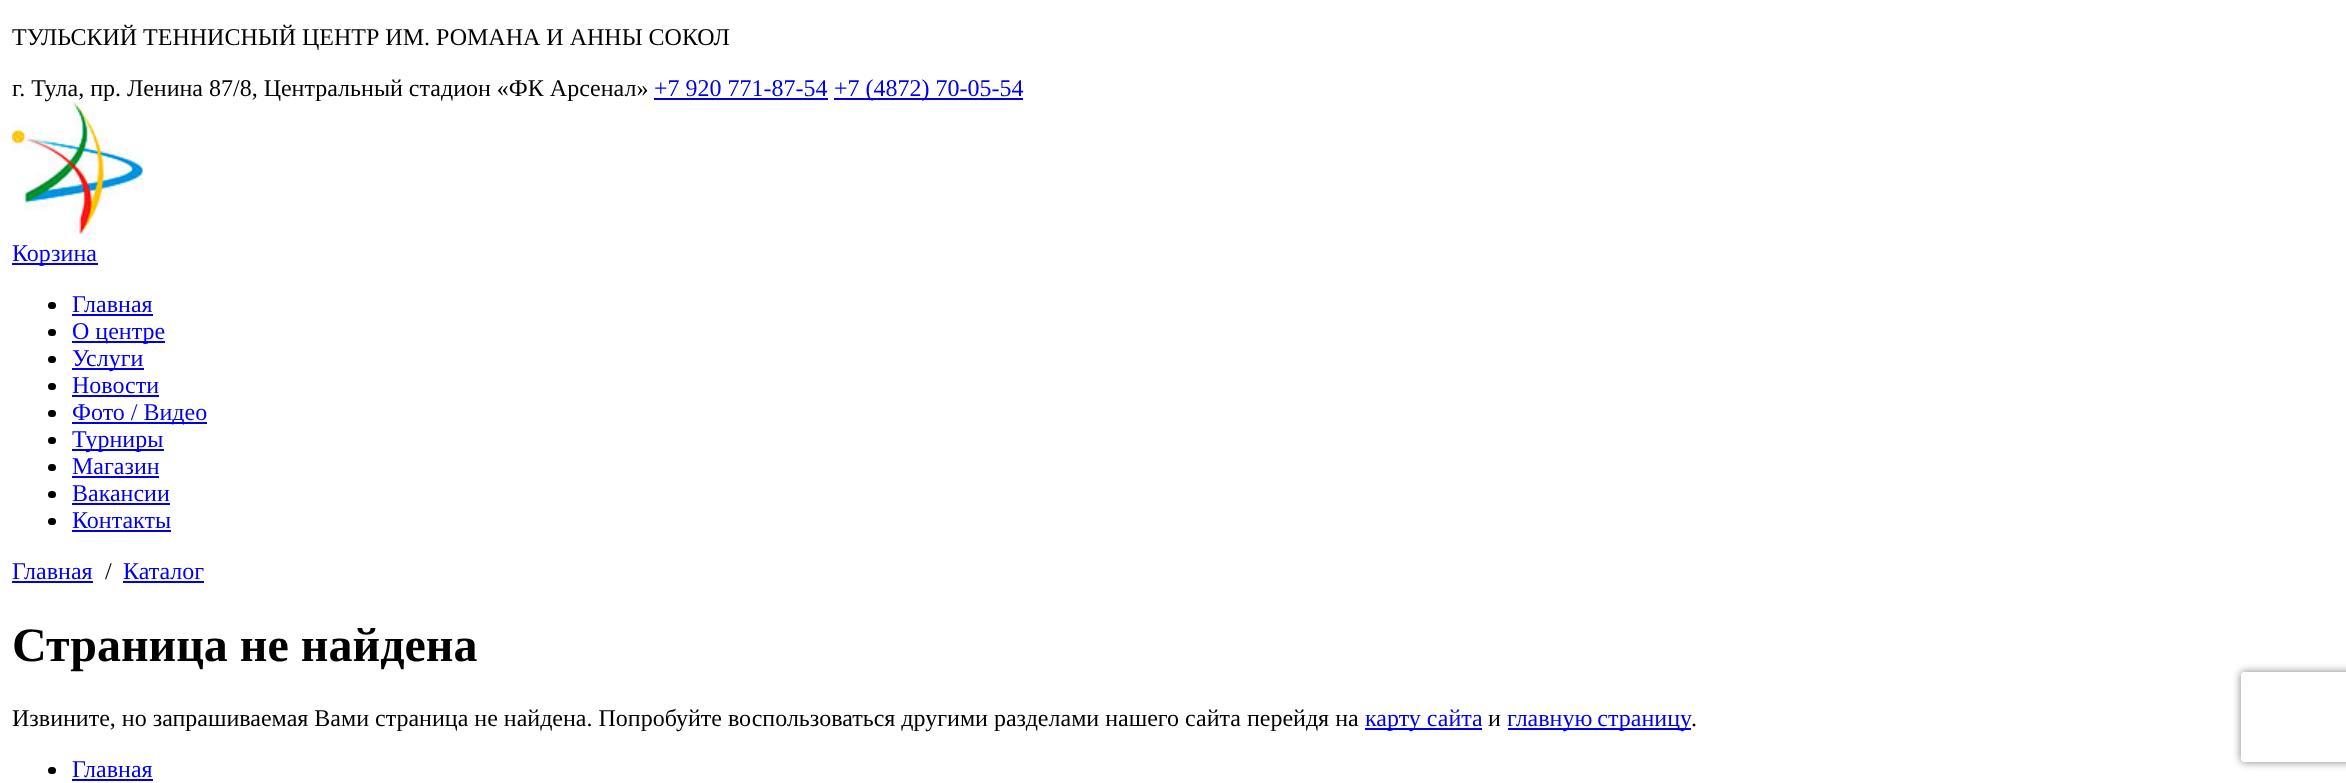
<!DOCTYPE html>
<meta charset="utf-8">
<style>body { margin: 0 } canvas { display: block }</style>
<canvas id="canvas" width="2346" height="783"></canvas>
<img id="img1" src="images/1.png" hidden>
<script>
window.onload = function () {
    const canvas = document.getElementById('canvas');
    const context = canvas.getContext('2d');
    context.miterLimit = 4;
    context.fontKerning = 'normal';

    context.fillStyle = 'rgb(255, 255, 255)';
    context.fillRect(0, 0, 2346, 783);
    context.fillStyle = 'rgb(0, 0, 238)';
    context.fillRect(654, 98, 174, 2);
    context.fillRect(834, 98, 189, 2);
    context.drawImage(document.getElementById('img1'), 12, 102, 131, 132);
    context.fillRect(12, 263, 86, 2);
    context.fillStyle = 'rgb(0, 0, 0)';
    context.beginPath();
    context.roundRect(48, 302, 8, 7, 3.5);
    context.fill();
    context.fillStyle = 'rgb(0, 0, 238)';
    context.fillRect(72, 314, 81, 2);
    context.fillStyle = 'rgb(0, 0, 0)';
    context.beginPath();
    context.roundRect(48, 329, 8, 7, 3.5);
    context.fill();
    context.fillStyle = 'rgb(0, 0, 238)';
    context.fillRect(72, 341, 93, 2);
    context.fillStyle = 'rgb(0, 0, 0)';
    context.beginPath();
    context.roundRect(48, 356, 8, 7, 3.5);
    context.fill();
    context.fillStyle = 'rgb(0, 0, 238)';
    context.fillRect(72, 368, 72, 2);
    context.fillStyle = 'rgb(0, 0, 0)';
    context.beginPath();
    context.roundRect(48, 383, 8, 7, 3.5);
    context.fill();
    context.fillStyle = 'rgb(0, 0, 238)';
    context.fillRect(72, 395, 87, 2);
    context.fillStyle = 'rgb(0, 0, 0)';
    context.beginPath();
    context.roundRect(48, 410, 8, 7, 3.5);
    context.fill();
    context.fillStyle = 'rgb(0, 0, 238)';
    context.fillRect(72, 422, 135, 2);
    context.fillStyle = 'rgb(0, 0, 0)';
    context.beginPath();
    context.roundRect(48, 437, 8, 7, 3.5);
    context.fill();
    context.fillStyle = 'rgb(0, 0, 238)';
    context.fillRect(72, 449, 92, 2);
    context.fillStyle = 'rgb(0, 0, 0)';
    context.beginPath();
    context.roundRect(48, 464, 8, 7, 3.5);
    context.fill();
    context.fillStyle = 'rgb(0, 0, 238)';
    context.fillRect(72, 476, 87, 2);
    context.fillStyle = 'rgb(0, 0, 0)';
    context.beginPath();
    context.roundRect(48, 491, 8, 7, 3.5);
    context.fill();
    context.fillStyle = 'rgb(0, 0, 238)';
    context.fillRect(72, 503, 98, 2);
    context.fillStyle = 'rgb(0, 0, 0)';
    context.beginPath();
    context.roundRect(48, 518, 8, 7, 3.5);
    context.fill();
    context.fillStyle = 'rgb(0, 0, 238)';
    context.fillRect(72, 530, 99, 2);
    context.fillRect(12, 581, 81, 2);
    context.fillRect(123, 581, 81, 2);
    context.fillRect(1365, 728, 117, 2);
    context.fillRect(1508, 728, 183, 2);
    context.save();
    context.beginPath();
    context.moveTo(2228, 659);
    context.lineTo(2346, 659);
    context.lineTo(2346, 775);
    context.lineTo(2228, 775);
    context.closePath();
    context.moveTo(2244, 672);
    context.lineTo(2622, 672);
    context.bezierCurveTo(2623.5, 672, 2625, 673.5, 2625, 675);
    context.lineTo(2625, 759);
    context.bezierCurveTo(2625, 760.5, 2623.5, 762, 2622, 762);
    context.lineTo(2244, 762);
    context.bezierCurveTo(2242.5, 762, 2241, 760.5, 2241, 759);
    context.lineTo(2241, 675);
    context.bezierCurveTo(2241, 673.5, 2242.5, 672, 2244, 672);
    context.closePath();
    context.clip('evenodd');
    context.fillStyle = 'rgb(128, 128, 128)';
    context.filter = 'blur(4px)';
    context.beginPath();
    context.roundRect(2241, 672, 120, 90, 3);
    context.fill();
    context.filter = 'none';
    context.restore();
    context.fillStyle = 'rgb(0, 0, 0)';
    context.beginPath();
    context.roundRect(48, 767, 8, 7, 3.5);
    context.fill();
    context.fillStyle = 'rgb(0, 0, 238)';
    context.fillRect(72, 779, 81, 2);
    context.font = '24px Liberation Serif';
    context.fillStyle = 'rgb(0, 0, 0)';
    context.fillText('ТУЛЬСКИЙ ТЕННИСНЫЙ ЦЕНТР ИМ. РОМАНА И АННЫ СОКОЛ', 12, 45);
    context.fillText('г. Тула, пр. Ленина 87/8, Центральный стадион «ФК Арсенал»', 12, 96);
    context.fillStyle = 'rgb(0, 0, 238)';
    context.fillText('+7 920 771-87-54', 654, 96);
    context.fillText('+7 (4872) 70-05-54', 834, 96);
    context.fillText('Корзина', 12, 261);
    context.fillText('Главная', 72, 312);
    context.fillText('О центре', 72, 339);
    context.fillText('Услуги', 72, 366);
    context.fillText('Новости', 72, 393);
    context.fillText('Фото / Видео', 72, 420);
    context.fillText('Турниры', 72, 447);
    context.fillText('Магазин', 72, 474);
    context.fillText('Вакансии', 72, 501);
    context.fillText('Контакты', 72, 528);
    context.fillText('Главная', 12, 579);
    context.fillStyle = 'rgb(0, 0, 0)';
    context.fillText('/', 105, 579);
    context.fillStyle = 'rgb(0, 0, 238)';
    context.fillText('Каталог', 123, 579);
    context.font = 'bold 48px Liberation Serif';
    context.fillStyle = 'rgb(0, 0, 0)';
    context.fillText('Страница не найдена', 12, 661);
    context.font = '24px Liberation Serif';
    context.fillText('Извините, но запрашиваемая Вами страница не найдена. Попробуйте воспользоваться другими разделами нашего сайта перейдя на', 12, 726);
    context.fillStyle = 'rgb(0, 0, 238)';
    context.fillText('карту сайта', 1365, 726);
    context.fillStyle = 'rgb(0, 0, 0)';
    context.fillText('и', 1488, 726);
    context.wordSpacing = '-1px';
    context.fillStyle = 'rgb(0, 0, 238)';
    context.fillText('главную страницу', 1507, 726);
    context.wordSpacing = '0px';
    context.fillStyle = 'rgb(0, 0, 0)';
    context.fillText('.', 1691, 726);
    context.fillStyle = 'rgb(0, 0, 238)';
    context.fillText('Главная', 72, 777);
};
</script>
